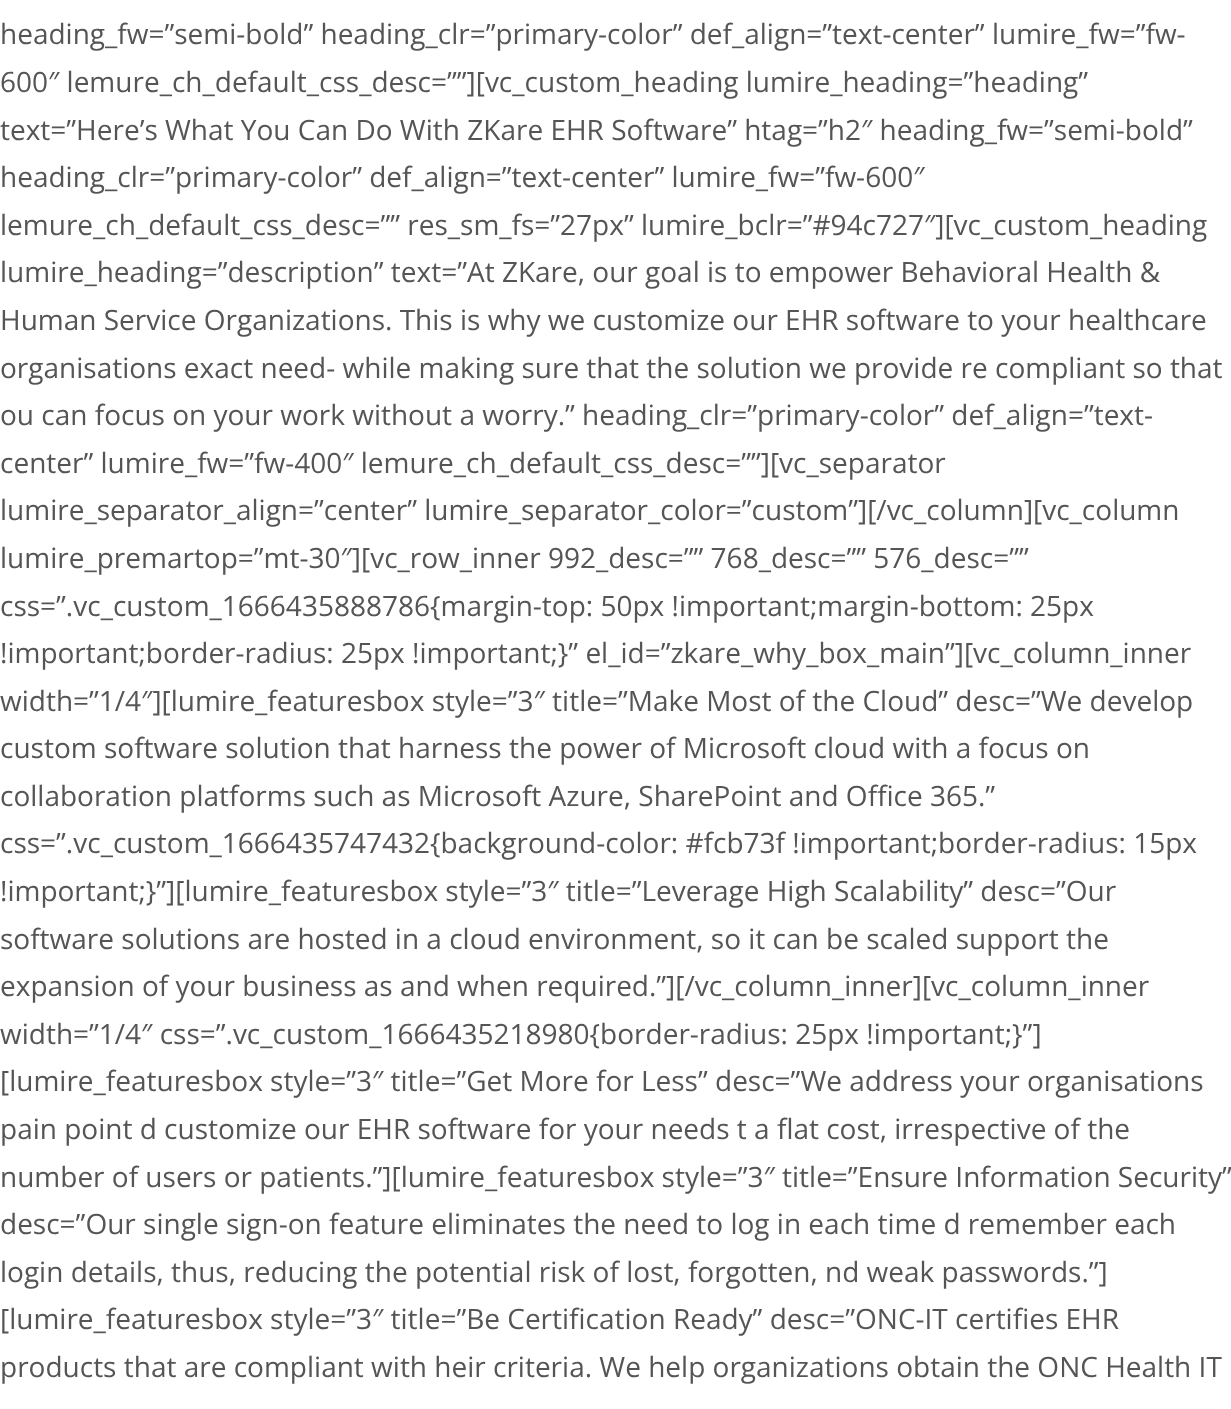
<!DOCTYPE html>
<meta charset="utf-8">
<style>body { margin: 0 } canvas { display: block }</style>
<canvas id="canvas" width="1231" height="1409"></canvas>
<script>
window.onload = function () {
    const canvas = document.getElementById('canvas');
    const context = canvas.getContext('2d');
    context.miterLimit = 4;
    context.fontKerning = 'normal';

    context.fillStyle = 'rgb(255, 255, 255)';
    context.fillRect(0, 0, 1231, 1409);
    context.font = '28px Open Sans';
    context.fillStyle = 'rgb(85, 85, 85)';
    context.fillText('heading_fw=”semi-bold” heading_clr=”primary-color” def_align=”text-center” lumire_fw=”fw-', 0, 44);
    context.fillText('600″ lemure_ch_default_css_desc=””][vc_custom_heading lumire_heading=”heading”', 0, 92);
    context.fillText('text=”Here’s What You Can Do With ZKare EHR Software” htag=”h2″ heading_fw=”semi-bold”', 0, 140);
    context.fillText('heading_clr=”primary-color” def_align=”text-center” lumire_fw=”fw-600″', 0, 187);
    context.fillText('lemure_ch_default_css_desc=”” res_sm_fs=”27px” lumire_bclr=”#94c727″][vc_custom_heading', 0, 235);
    context.fillText('lumire_heading=”description” text=”At ZKare, our goal is to empower Behavioral Health &', 0, 282);
    context.fillText('Human Service Organizations. This is why we customize our EHR software to your healthcare', 0, 330);
    context.fillText('organisations exact need- while making sure that the solution we provide re compliant so that', 0, 378);
    context.fillText('ou can focus on your work without a worry.” heading_clr=”primary-color” def_align=”text-', 0, 425);
    context.fillText('center” lumire_fw=”fw-400″ lemure_ch_default_css_desc=””][vc_separator', 0, 473);
    context.fillText('lumire_separator_align=”center” lumire_separator_color=”custom”][/vc_column][vc_column', 0, 520);
    context.fillText('lumire_premartop=”mt-30″][vc_row_inner 992_desc=”” 768_desc=”” 576_desc=””', 0, 568);
    context.fillText('css=”.vc_custom_1666435888786{margin-top: 50px !important;margin-bottom: 25px', 0, 616);
    context.fillText('!important;border-radius: 25px !important;}” el_id=”zkare_why_box_main”][vc_column_inner', 0, 663);
    context.fillText('width=”1/4″][lumire_featuresbox style=”3″ title=”Make Most of the Cloud” desc=”We develop', 0, 711);
    context.fillText('custom software solution that harness the power of Microsoft cloud with a focus on', 0, 758);
    context.fillText('collaboration platforms such as Microsoft Azure, SharePoint and Office 365.”', 0, 806);
    context.fillText('css=”.vc_custom_1666435747432{background-color: #fcb73f !important;border-radius: 15px', 0, 853);
    context.fillText('!important;}”][lumire_featuresbox style=”3″ title=”Leverage High Scalability” desc=”Our', 0, 901);
    context.fillText('software solutions are hosted in a cloud environment, so it can be scaled support the', 0, 949);
    context.fillText('expansion of your business as and when required.”][/vc_column_inner][vc_column_inner', 0, 996);
    context.fillText('width=”1/4″ css=”.vc_custom_1666435218980{border-radius: 25px !important;}”]', 0, 1044);
    context.fillText('[lumire_featuresbox style=”3″ title=”Get More for Less” desc=”We address your organisations', 0, 1091);
    context.fillText('pain point d customize our EHR software for your needs t a flat cost, irrespective of the', 0, 1139);
    context.fillText('number of users or patients.”][lumire_featuresbox style=”3″ title=”Ensure Information Security”', 0, 1187);
    context.fillText('desc=”Our single sign-on feature eliminates the need to log in each time d remember each', 0, 1234);
    context.fillText('login details, thus, reducing the potential risk of lost, forgotten, nd weak passwords.”]', 0, 1282);
    context.fillText('[lumire_featuresbox style=”3″ title=”Be Certification Ready” desc=”ONC-IT certifies EHR', 0, 1329);
    context.fillText('products that are compliant with heir criteria. We help organizations obtain the ONC Health IT', 0, 1377);
};
</script>
